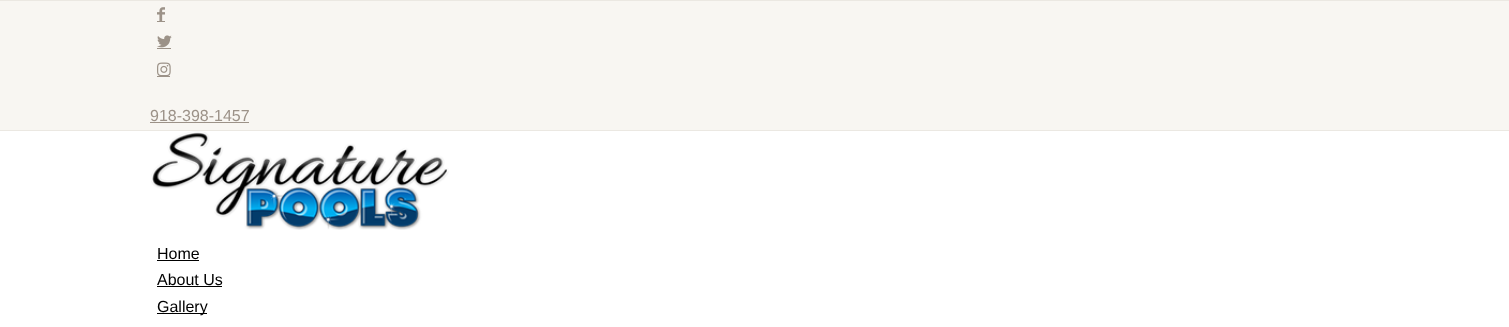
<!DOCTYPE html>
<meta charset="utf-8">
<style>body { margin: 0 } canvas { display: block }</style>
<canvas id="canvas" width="1509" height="327"></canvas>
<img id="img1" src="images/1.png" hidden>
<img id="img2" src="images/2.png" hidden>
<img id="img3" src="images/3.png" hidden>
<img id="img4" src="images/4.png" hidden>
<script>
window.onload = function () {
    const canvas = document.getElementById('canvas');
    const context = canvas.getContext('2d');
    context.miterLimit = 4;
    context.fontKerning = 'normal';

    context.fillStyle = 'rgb(255, 255, 255)';
    context.fillRect(0, 0, 1509, 327);
    context.fillStyle = 'rgb(248, 246, 242)';
    context.fillRect(0, 1, 1509, 129);
    context.fillStyle = 'rgb(235, 232, 226)';
    context.fillRect(0, 0, 1509, 1);
    context.drawImage(document.getElementById('img1'), 157, 7, 8, 14);
    context.fillStyle = 'rgb(156, 146, 136)';
    context.fillRect(157, 21, 8, 1);
    context.drawImage(document.getElementById('img2'), 157, 35, 15, 13);
    context.fillRect(157, 48, 14, 1);
    context.drawImage(document.getElementById('img3'), 157, 62, 14, 14);
    context.fillRect(157, 76, 13, 1);
    context.fillRect(150, 122, 99, 1);
    context.fillStyle = 'rgb(235, 232, 226)';
    context.fillRect(0, 130, 1509, 1);
    context.drawImage(document.getElementById('img4'), 151, 131, 298, 99);
    context.fillStyle = 'rgb(0, 0, 0)';
    context.fillRect(157, 260, 42, 1);
    context.fillRect(157, 286, 65, 1);
    context.fillRect(157, 313, 50, 1);
    context.font = '16px Liberation Sans';
    context.fillStyle = 'rgb(156, 146, 136)';
    context.fillText('918-398-1457', 150, 121);
    context.fillStyle = 'rgb(0, 0, 0)';
    context.fillText('Home', 157, 259);
    context.fillText('About Us', 157, 285);
    context.fillText('Gallery', 157, 312);
};
</script>
